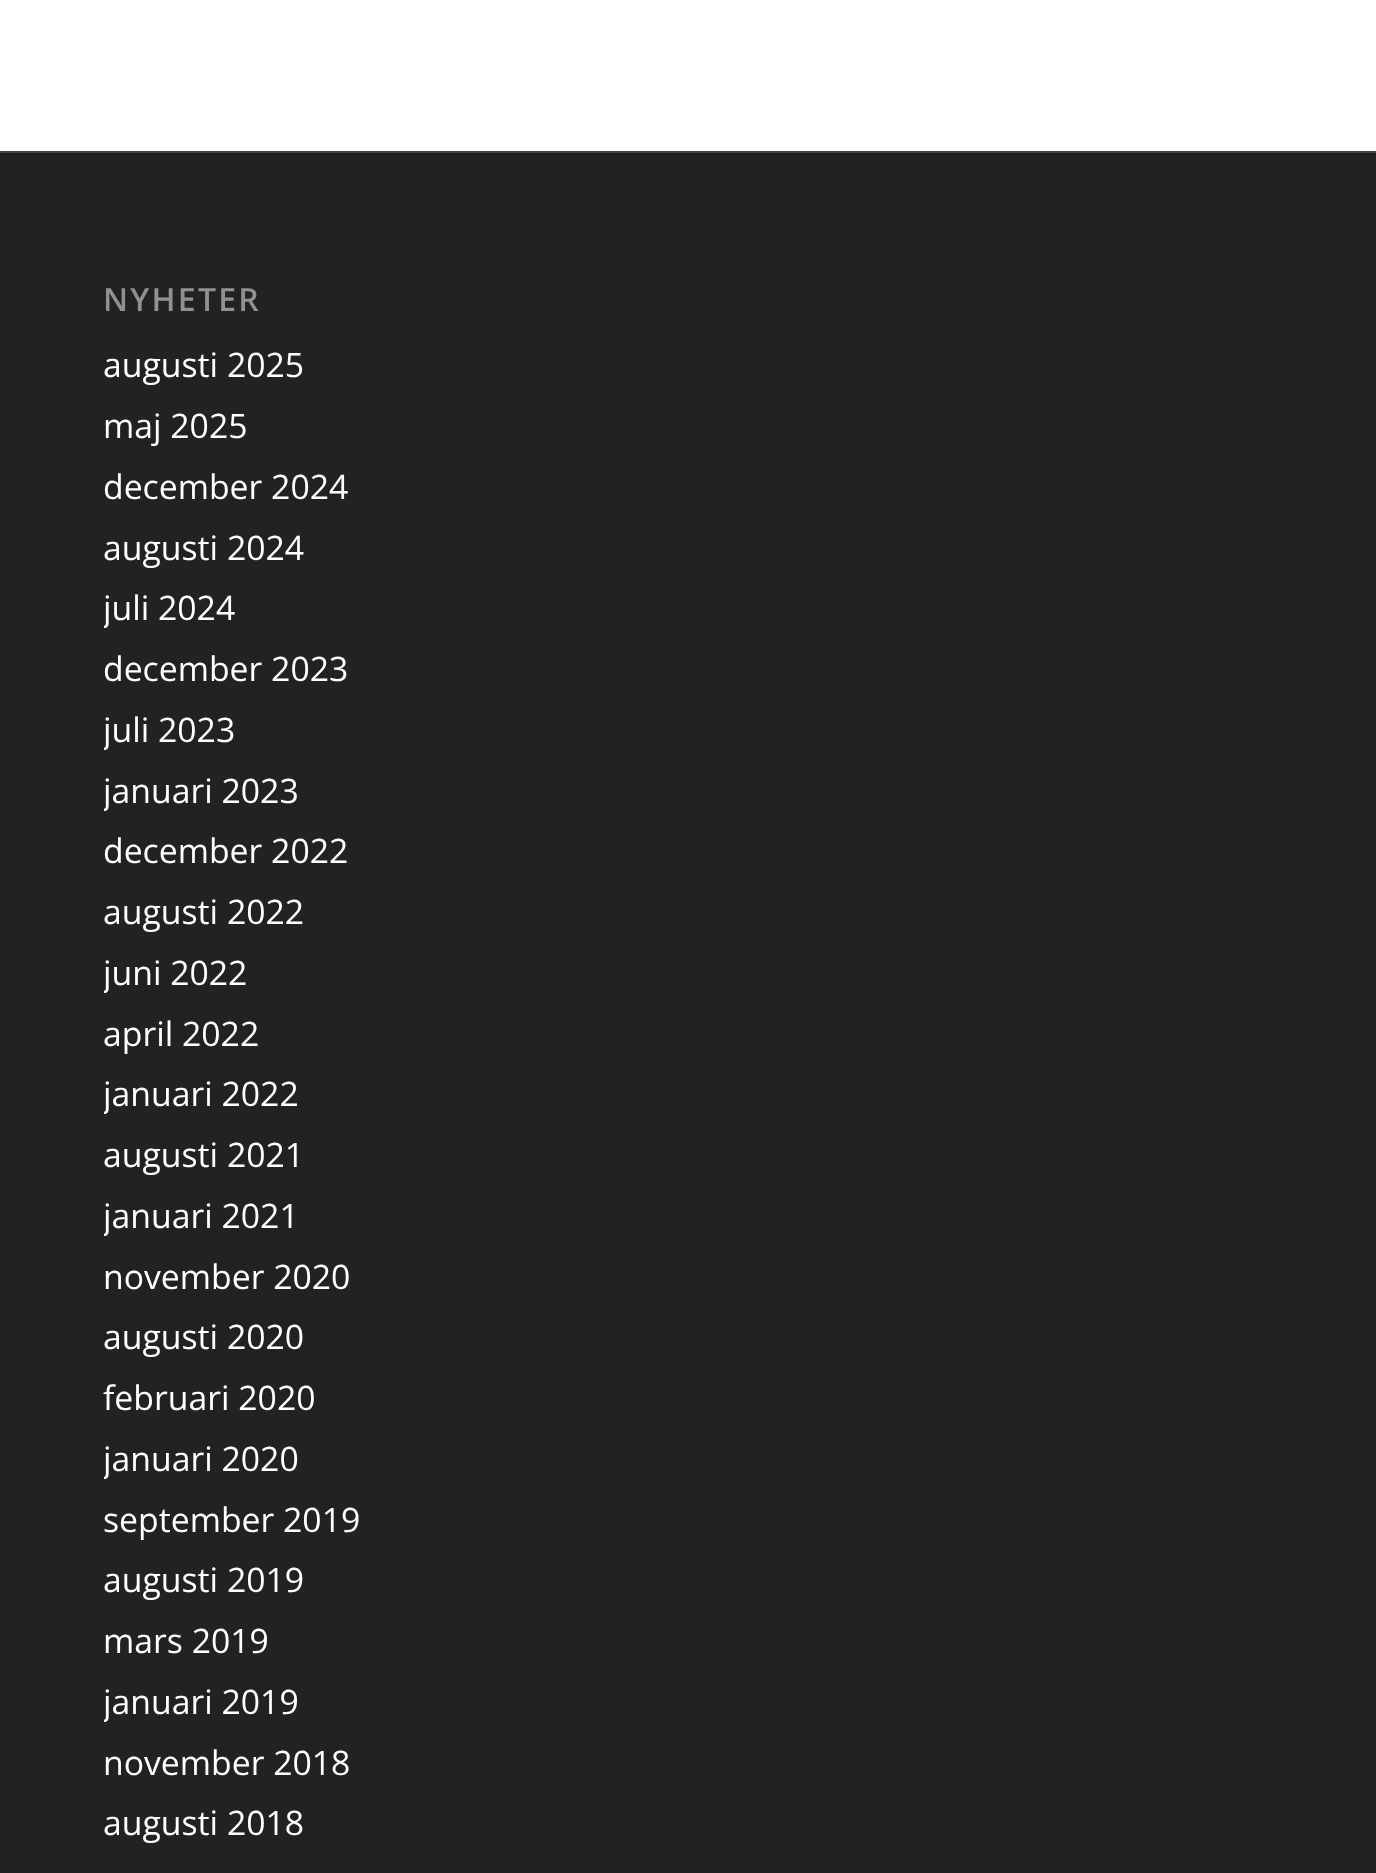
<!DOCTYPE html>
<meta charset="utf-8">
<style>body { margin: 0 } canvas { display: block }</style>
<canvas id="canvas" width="1376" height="1873"></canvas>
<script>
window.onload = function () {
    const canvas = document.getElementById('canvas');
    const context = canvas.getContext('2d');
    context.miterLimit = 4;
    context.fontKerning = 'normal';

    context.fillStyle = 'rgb(255, 255, 255)';
    context.fillRect(0, 0, 1376, 1873);
    context.fillStyle = 'rgb(34, 34, 34)';
    context.fillRect(0, 153, 1376, 1720);
    context.fillStyle = 'rgb(68, 68, 68)';
    context.fillRect(0, 151, 1376, 2);
    context.letterSpacing = '2.25px';
    context.font = '600 32px Open Sans';
    context.fillStyle = 'rgb(145, 145, 145)';
    context.fillText('NYHETER', 103, 311);
    context.letterSpacing = '0px';
    context.font = '33.75px Open Sans';
    context.fillStyle = 'rgb(255, 255, 255)';
    context.fillText('augusti 2025', 103, 377);
    context.fillText('maj 2025', 103, 438);
    context.fillText('december 2024', 103, 499);
    context.fillText('augusti 2024', 103, 560);
    context.save();
    context.beginPath();
    context.rect(104, 254, 1170, 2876);
    context.clip();
    context.fillText('juli 2024', 103, 620);
    context.restore();
    context.fillText('december 2023', 103, 681);
    context.save();
    context.beginPath();
    context.rect(104, 254, 1170, 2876);
    context.clip();
    context.fillText('juli 2023', 103, 742);
    context.fillText('januari 2023', 103, 803);
    context.restore();
    context.fillText('december 2022', 103, 863);
    context.fillText('augusti 2022', 103, 924);
    context.save();
    context.beginPath();
    context.rect(104, 254, 1170, 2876);
    context.clip();
    context.fillText('juni 2022', 103, 985);
    context.restore();
    context.fillText('april 2022', 103, 1046);
    context.save();
    context.beginPath();
    context.rect(104, 254, 1170, 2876);
    context.clip();
    context.fillText('januari 2022', 103, 1106);
    context.restore();
    context.fillText('augusti 2021', 103, 1167);
    context.save();
    context.beginPath();
    context.rect(104, 254, 1170, 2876);
    context.clip();
    context.fillText('januari 2021', 103, 1228);
    context.restore();
    context.fillText('november 2020', 103, 1289);
    context.fillText('augusti 2020', 103, 1349);
    context.fillText('februari 2020', 103, 1410);
    context.save();
    context.beginPath();
    context.rect(104, 254, 1170, 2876);
    context.clip();
    context.fillText('januari 2020', 103, 1471);
    context.restore();
    context.fillText('september 2019', 103, 1532);
    context.fillText('augusti 2019', 103, 1592);
    context.fillText('mars 2019', 103, 1653);
    context.save();
    context.beginPath();
    context.rect(104, 254, 1170, 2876);
    context.clip();
    context.fillText('januari 2019', 103, 1714);
    context.restore();
    context.fillText('november 2018', 103, 1775);
    context.fillText('augusti 2018', 103, 1835);
};
</script>
